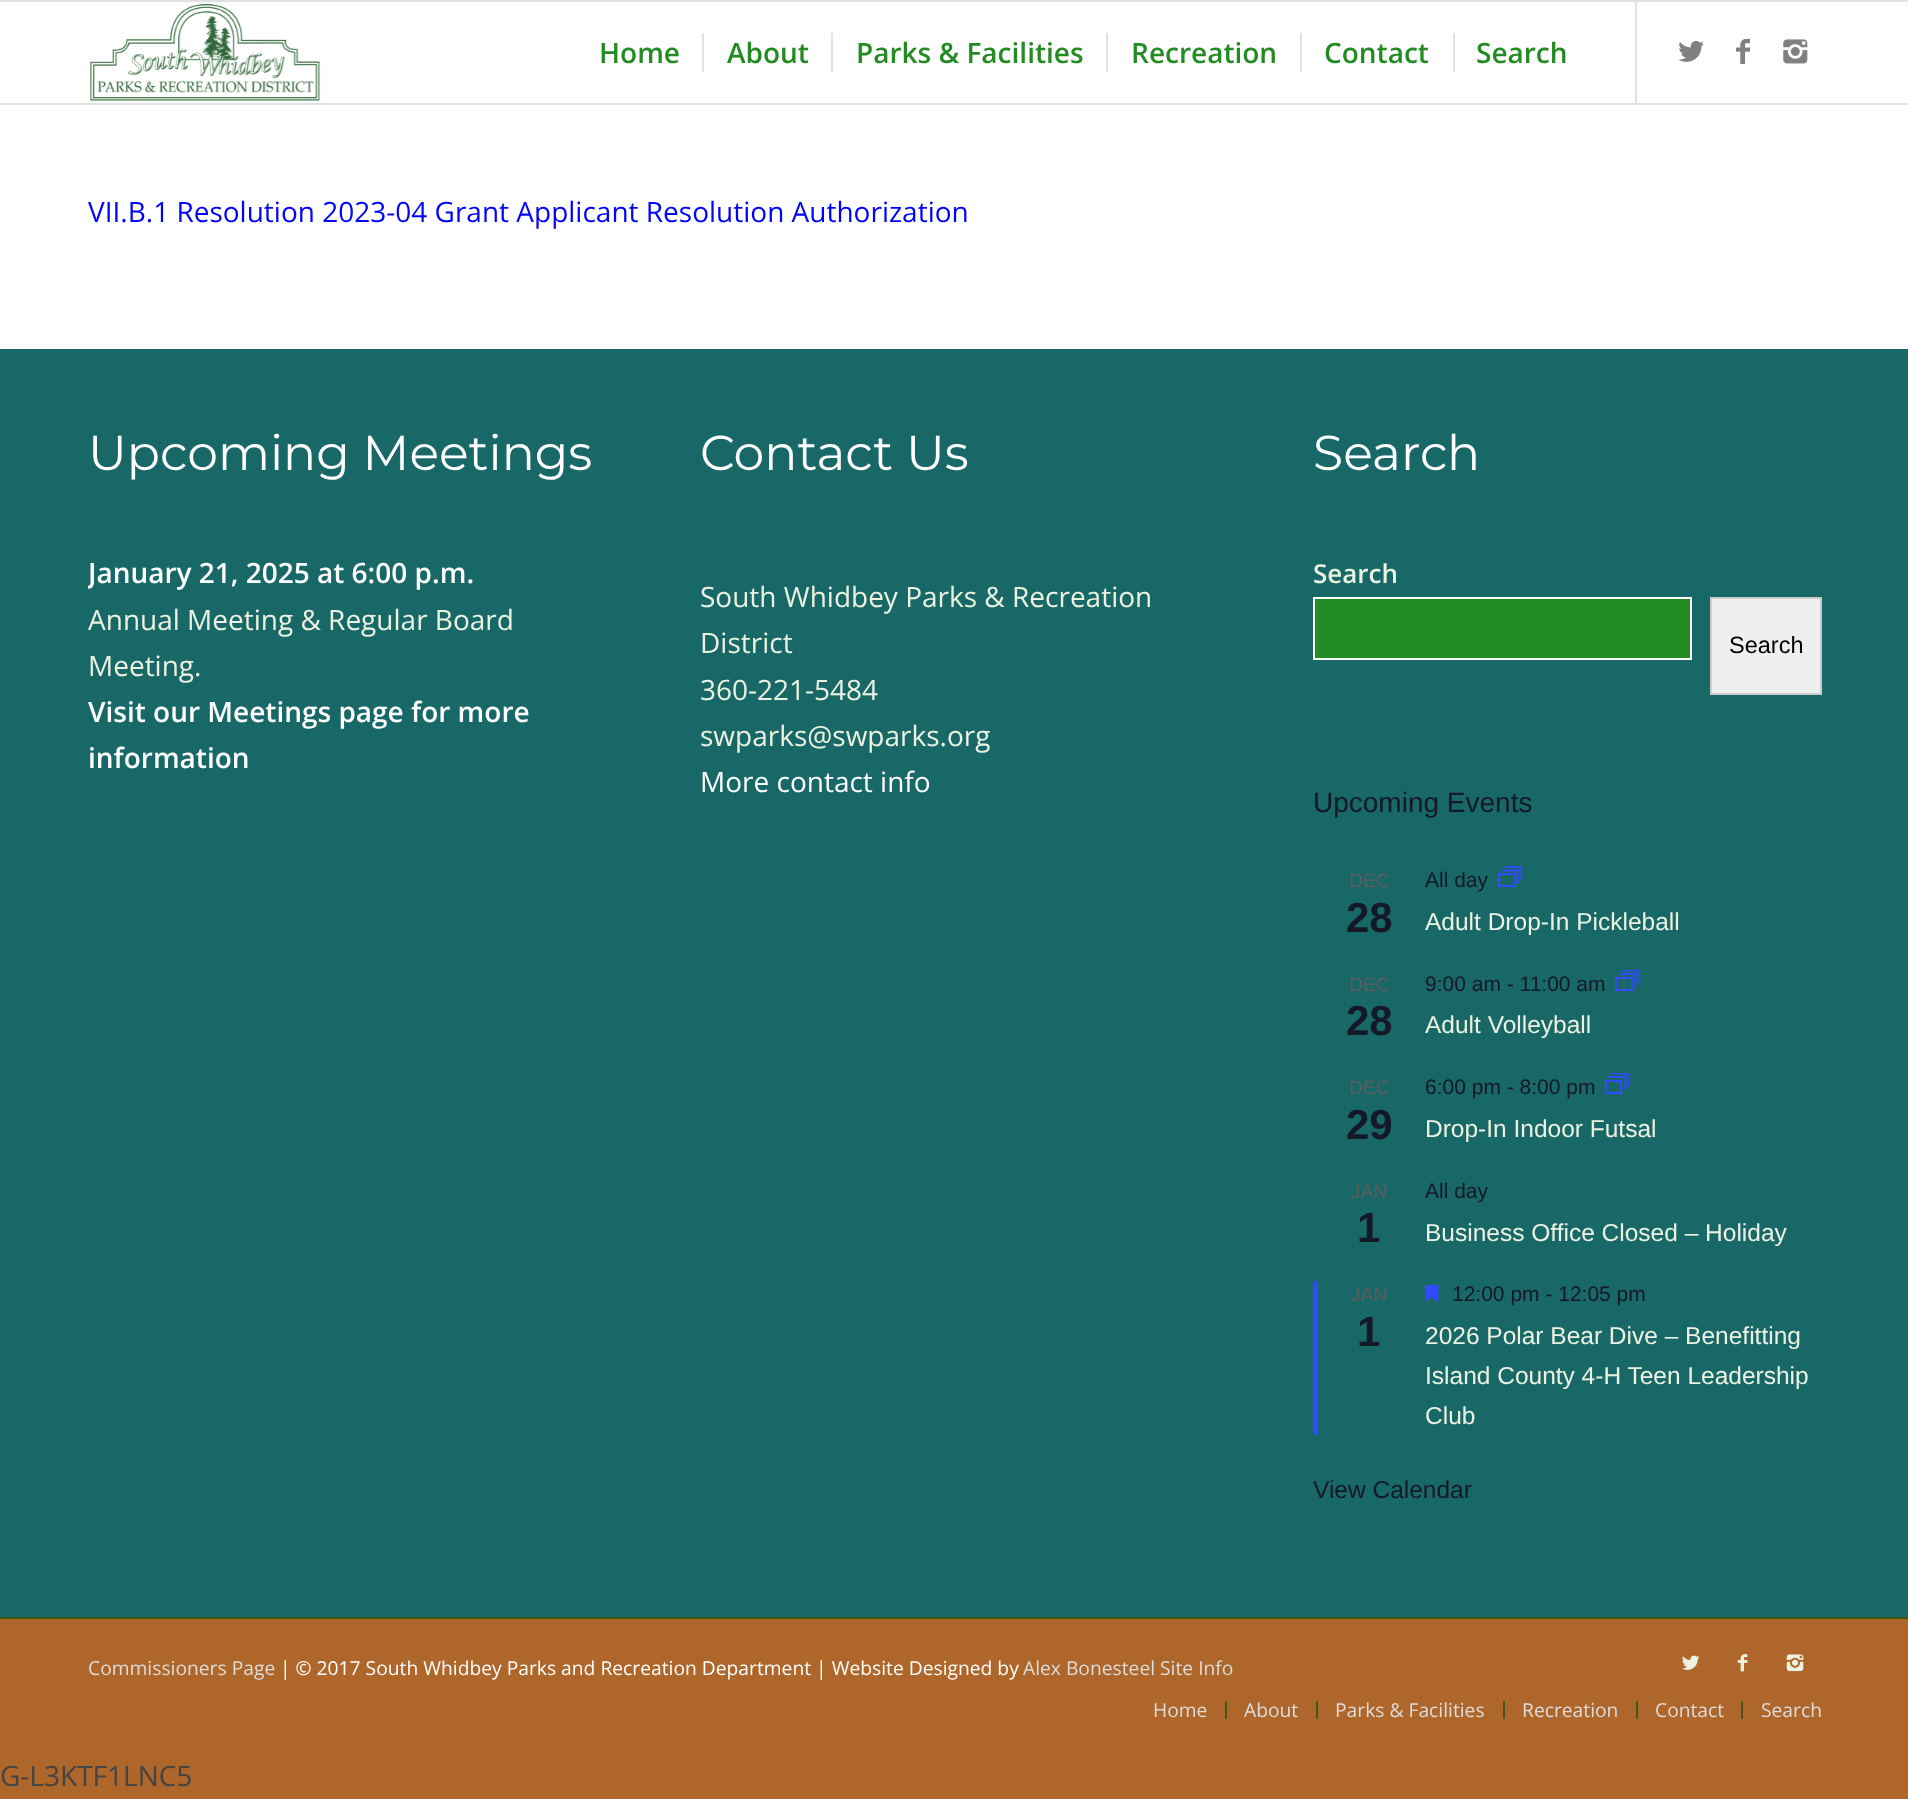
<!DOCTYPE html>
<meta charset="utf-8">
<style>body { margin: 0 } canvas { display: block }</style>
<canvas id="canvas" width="1908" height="1799"></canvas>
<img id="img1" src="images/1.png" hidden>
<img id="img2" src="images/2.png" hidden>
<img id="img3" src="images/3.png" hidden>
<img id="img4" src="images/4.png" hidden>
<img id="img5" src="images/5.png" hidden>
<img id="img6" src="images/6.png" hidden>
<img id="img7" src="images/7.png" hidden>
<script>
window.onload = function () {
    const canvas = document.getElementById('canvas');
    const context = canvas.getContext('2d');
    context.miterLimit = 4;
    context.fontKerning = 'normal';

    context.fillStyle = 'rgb(174, 102, 42)';
    context.fillRect(0, 0, 1908, 1799);
    context.fillStyle = 'rgb(225, 225, 225)';
    context.fillRect(0, 0, 1908, 2);
    context.fillRect(0, 103, 1908, 2);
    context.fillStyle = 'rgb(255, 255, 255)';
    context.fillRect(0, 2, 1908, 101);
    context.drawImage(document.getElementById('img1'), 90, 4, 231, 97);
    context.fillStyle = 'rgb(225, 225, 225)';
    context.fillRect(1635, 2, 2, 101);
    context.fillRect(702, 33, 2, 39);
    context.fillRect(831, 33, 2, 39);
    context.fillRect(1106, 33, 2, 39);
    context.fillRect(1300, 33, 2, 39);
    context.fillRect(1453, 33, 2, 39);
    context.drawImage(document.getElementById('img2'), 1678, 41, 26, 21);
    context.drawImage(document.getElementById('img3'), 1736, 38, 14, 27);
    context.drawImage(document.getElementById('img4'), 1783, 39, 25, 25);
    context.fillStyle = 'rgb(255, 255, 255)';
    context.fillRect(0, 105, 1908, 244);
    context.fillStyle = 'rgb(25, 104, 104)';
    context.fillRect(0, 349, 1908, 1268);
    context.fillStyle = 'rgb(34, 139, 34)';
    context.beginPath();
    context.rect(1314, 598, 377, 61);
    context.fill();
    context.strokeStyle = 'rgb(255, 255, 255)';
    context.lineWidth = 2;
    context.stroke();
    context.fillStyle = 'rgb(239, 239, 239)';
    context.beginPath();
    context.rect(1711, 598, 110, 96);
    context.fill();
    context.strokeStyle = 'rgb(204, 204, 204)';
    context.stroke();
    context.strokeStyle = 'rgb(51, 74, 255)';
    context.strokeRect(1499, 874, 16, 12);
    context.beginPath();
    context.moveTo(1501.5, 870.5);
    context.lineTo(1518, 870.5);
    context.lineTo(1518, 884);
    context.moveTo(1505, 867);
    context.lineTo(1521.5, 867);
    context.lineTo(1521.5, 880);
    context.lineWidth = 1.8;
    context.stroke();
    context.lineWidth = 2;
    context.strokeRect(1616, 978, 16, 12);
    context.beginPath();
    context.moveTo(1619, 974);
    context.lineTo(1635.5, 974);
    context.lineTo(1635.5, 987);
    context.lineWidth = 1.8;
    context.stroke();
    context.save();
    context.beginPath();
    context.rect(1615, 970, 25, 21);
    context.clip();
    context.beginPath();
    context.moveTo(1622, 970.5);
    context.lineTo(1639, 970.5);
    context.lineTo(1639, 983.5);
    context.stroke();
    context.restore();
    context.lineWidth = 2;
    context.strokeRect(1606, 1081, 15, 12);
    context.beginPath();
    context.moveTo(1608, 1077);
    context.lineTo(1625, 1077);
    context.lineTo(1625, 1090);
    context.lineWidth = 1.8;
    context.stroke();
    context.save();
    context.beginPath();
    context.rect(1605, 1073, 24, 21);
    context.clip();
    context.beginPath();
    context.moveTo(1612, 1073.5);
    context.lineTo(1628.5, 1073.5);
    context.lineTo(1628.5, 1087);
    context.stroke();
    context.restore();
    context.fillStyle = 'rgb(51, 74, 255)';
    context.beginPath();
    context.roundRect(1313, 1281, 5, 154, 2.5);
    context.fill();
    context.save();
    context.beginPath();
    context.rect(1425, 1285, 14, 17);
    context.clip();
    context.beginPath();
    context.moveTo(1424.5, 1284.5);
    context.lineTo(1438.5, 1284.5);
    context.lineTo(1438.5, 1302);
    context.lineTo(1431.5, 1297.5);
    context.lineTo(1424.5, 1302);
    context.closePath();
    context.fill('evenodd');
    context.restore();
    context.fillStyle = 'rgb(66, 87, 25)';
    context.fillRect(0, 1617, 1908, 2);
    context.drawImage(document.getElementById('img5'), 1682, 1655, 18, 15);
    context.drawImage(document.getElementById('img6'), 1737, 1654, 11, 18);
    context.drawImage(document.getElementById('img7'), 1786, 1654, 18, 18);
    context.fillRect(1225, 1701, 2, 18);
    context.fillRect(1316, 1701, 2, 18);
    context.fillRect(1503, 1701, 2, 18);
    context.fillRect(1636, 1701, 2, 18);
    context.fillRect(1741, 1701, 2, 18);
    context.font = '600 28px Open Sans';
    context.fillStyle = 'rgb(34, 139, 34)';
    context.fillText('Home', 599, 63);
    context.fillText('About', 727, 63);
    context.fillText('Parks & Facilities', 856, 63);
    context.fillText('Recreation', 1131, 63);
    context.fillText('Contact', 1324, 63);
    context.fillText('Search', 1476, 63);
    context.font = '28px Open Sans';
    context.fillStyle = 'rgb(0, 4, 252)';
    context.fillText('VII.B.1 Resolution 2023-04 Grant Applicant Resolution Authorization', 88, 222);
    context.font = '100 49px Montserrat';
    context.fillStyle = 'rgb(255, 255, 255)';
    context.fillText('Upcoming Meetings', 88, 470);
    context.save();
    context.beginPath();
    context.rect(88, 550, 509, 231);
    context.clip();
    context.font = '600 28px Open Sans';
    context.fillText('January 21, 2025', 88, 583);
    context.restore();
    context.font = '600 28px Open Sans';
    context.fillText('at 6:00 p.m.', 317, 583);
    context.font = '28px Open Sans';
    context.fillStyle = 'rgb(236, 242, 225)';
    context.fillText('Annual Meeting & Regular Board', 88, 630);
    context.fillText('Meeting.', 88, 676);
    context.font = '600 28px Open Sans';
    context.fillStyle = 'rgb(255, 255, 255)';
    context.fillText('Visit our Meetings page for more', 88, 722);
    context.fillText('information', 88, 768);
    context.font = '100 49px Montserrat';
    context.fillText('Contact Us', 700, 470);
    context.font = '28px Open Sans';
    context.fillStyle = 'rgb(236, 242, 225)';
    context.fillText('South Whidbey Parks & Recreation', 700, 607);
    context.fillText('District', 700, 653);
    context.fillText('360-221-5484', 700, 700);
    context.fillText('swparks@swparks.org', 700, 746);
    context.fillStyle = 'rgb(255, 255, 255)';
    context.fillText('More contact info', 700, 792);
    context.font = '100 49px Montserrat';
    context.fillText('Search', 1313, 470);
    context.font = '600 26px Open Sans';
    context.fillStyle = 'rgb(236, 242, 225)';
    context.fillText('Search', 1313, 583);
    context.font = '23.5px Liberation Sans';
    context.fillStyle = 'rgb(0, 0, 0)';
    context.fillText('Search', 1729, 653);
    context.font = '28px Liberation Sans';
    context.fillStyle = 'rgb(20, 24, 39)';
    context.fillText('Upcoming Events', 1313, 812);
    context.font = '19.25px Liberation Sans';
    context.fillStyle = 'rgb(93, 93, 93)';
    context.fillText('DEC', 1349, 887);
    context.font = 'bold 42px Liberation Sans';
    context.fillStyle = 'rgb(20, 24, 39)';
    context.fillText('28', 1346, 932);
    context.font = '21px Liberation Sans';
    context.fillText('All day', 1425, 887);
    context.font = '24.5px Liberation Sans';
    context.fillStyle = 'rgb(236, 242, 225)';
    context.fillText('Adult Drop-In Pickleball', 1425, 930);
    context.font = '19.25px Liberation Sans';
    context.fillStyle = 'rgb(93, 93, 93)';
    context.fillText('DEC', 1349, 991);
    context.font = 'bold 42px Liberation Sans';
    context.fillStyle = 'rgb(20, 24, 39)';
    context.fillText('28', 1346, 1035);
    context.font = '21px Liberation Sans';
    context.fillText('9:00 am - 11:00 am', 1425, 991);
    context.font = '24.5px Liberation Sans';
    context.fillStyle = 'rgb(236, 242, 225)';
    context.fillText('Adult Volleyball', 1425, 1033);
    context.font = '19.25px Liberation Sans';
    context.fillStyle = 'rgb(93, 93, 93)';
    context.fillText('DEC', 1349, 1094);
    context.font = 'bold 42px Liberation Sans';
    context.fillStyle = 'rgb(20, 24, 39)';
    context.fillText('29', 1346, 1139);
    context.font = '21px Liberation Sans';
    context.fillText('6:00 pm - 8:00 pm', 1425, 1094);
    context.font = '24.5px Liberation Sans';
    context.fillStyle = 'rgb(236, 242, 225)';
    context.fillText('Drop-In Indoor Futsal', 1425, 1137);
    context.font = '19.25px Liberation Sans';
    context.fillStyle = 'rgb(93, 93, 93)';
    context.fillText('JAN', 1351, 1198);
    context.font = 'bold 42px Liberation Sans';
    context.fillStyle = 'rgb(20, 24, 39)';
    context.fillText('1', 1357, 1242);
    context.font = '21px Liberation Sans';
    context.fillText('All day', 1425, 1198);
    context.font = '24.5px Liberation Sans';
    context.fillStyle = 'rgb(236, 242, 225)';
    context.fillText('Business Office Closed – Holiday', 1425, 1241);
    context.font = '19.25px Liberation Sans';
    context.fillStyle = 'rgb(93, 93, 93)';
    context.fillText('JAN', 1351, 1301);
    context.font = 'bold 42px Liberation Sans';
    context.fillStyle = 'rgb(20, 24, 39)';
    context.fillText('1', 1357, 1346);
    context.font = '21px Liberation Sans';
    context.fillText('12:00 pm - 12:05 pm', 1452, 1301);
    context.font = '24.5px Liberation Sans';
    context.fillStyle = 'rgb(236, 242, 225)';
    context.fillText('2026 Polar Bear Dive – Benefitting', 1425, 1344);
    context.fillText('Island County 4-H Teen Leadership', 1425, 1384);
    context.fillText('Club', 1425, 1424);
    context.fillStyle = 'rgb(20, 24, 39)';
    context.fillText('View Calendar', 1313, 1498);
    context.font = '19.25px Open Sans';
    context.fillStyle = 'rgb(221, 221, 221)';
    context.fillText('Commissioners Page', 88, 1675);
    context.fillStyle = 'rgb(255, 255, 255)';
    context.fillText('| © 2017 South Whidbey Parks and Recreation Department | Website Designed by', 280, 1675);
    context.fillStyle = 'rgb(221, 221, 221)';
    context.fillText('Alex Bonesteel Site Info', 1023, 1675);
    context.fillText('Home', 1153, 1717);
    context.fillText('About', 1244, 1717);
    context.fillText('Parks & Facilities', 1335, 1717);
    context.fillText('Recreation', 1522, 1717);
    context.fillText('Contact', 1655, 1717);
    context.fillText('Search', 1761, 1717);
    context.font = '28px Open Sans';
    context.fillStyle = 'rgb(68, 68, 68)';
    context.fillText('G-L3KTF1LNC5', 0, 1786);
};
</script>
